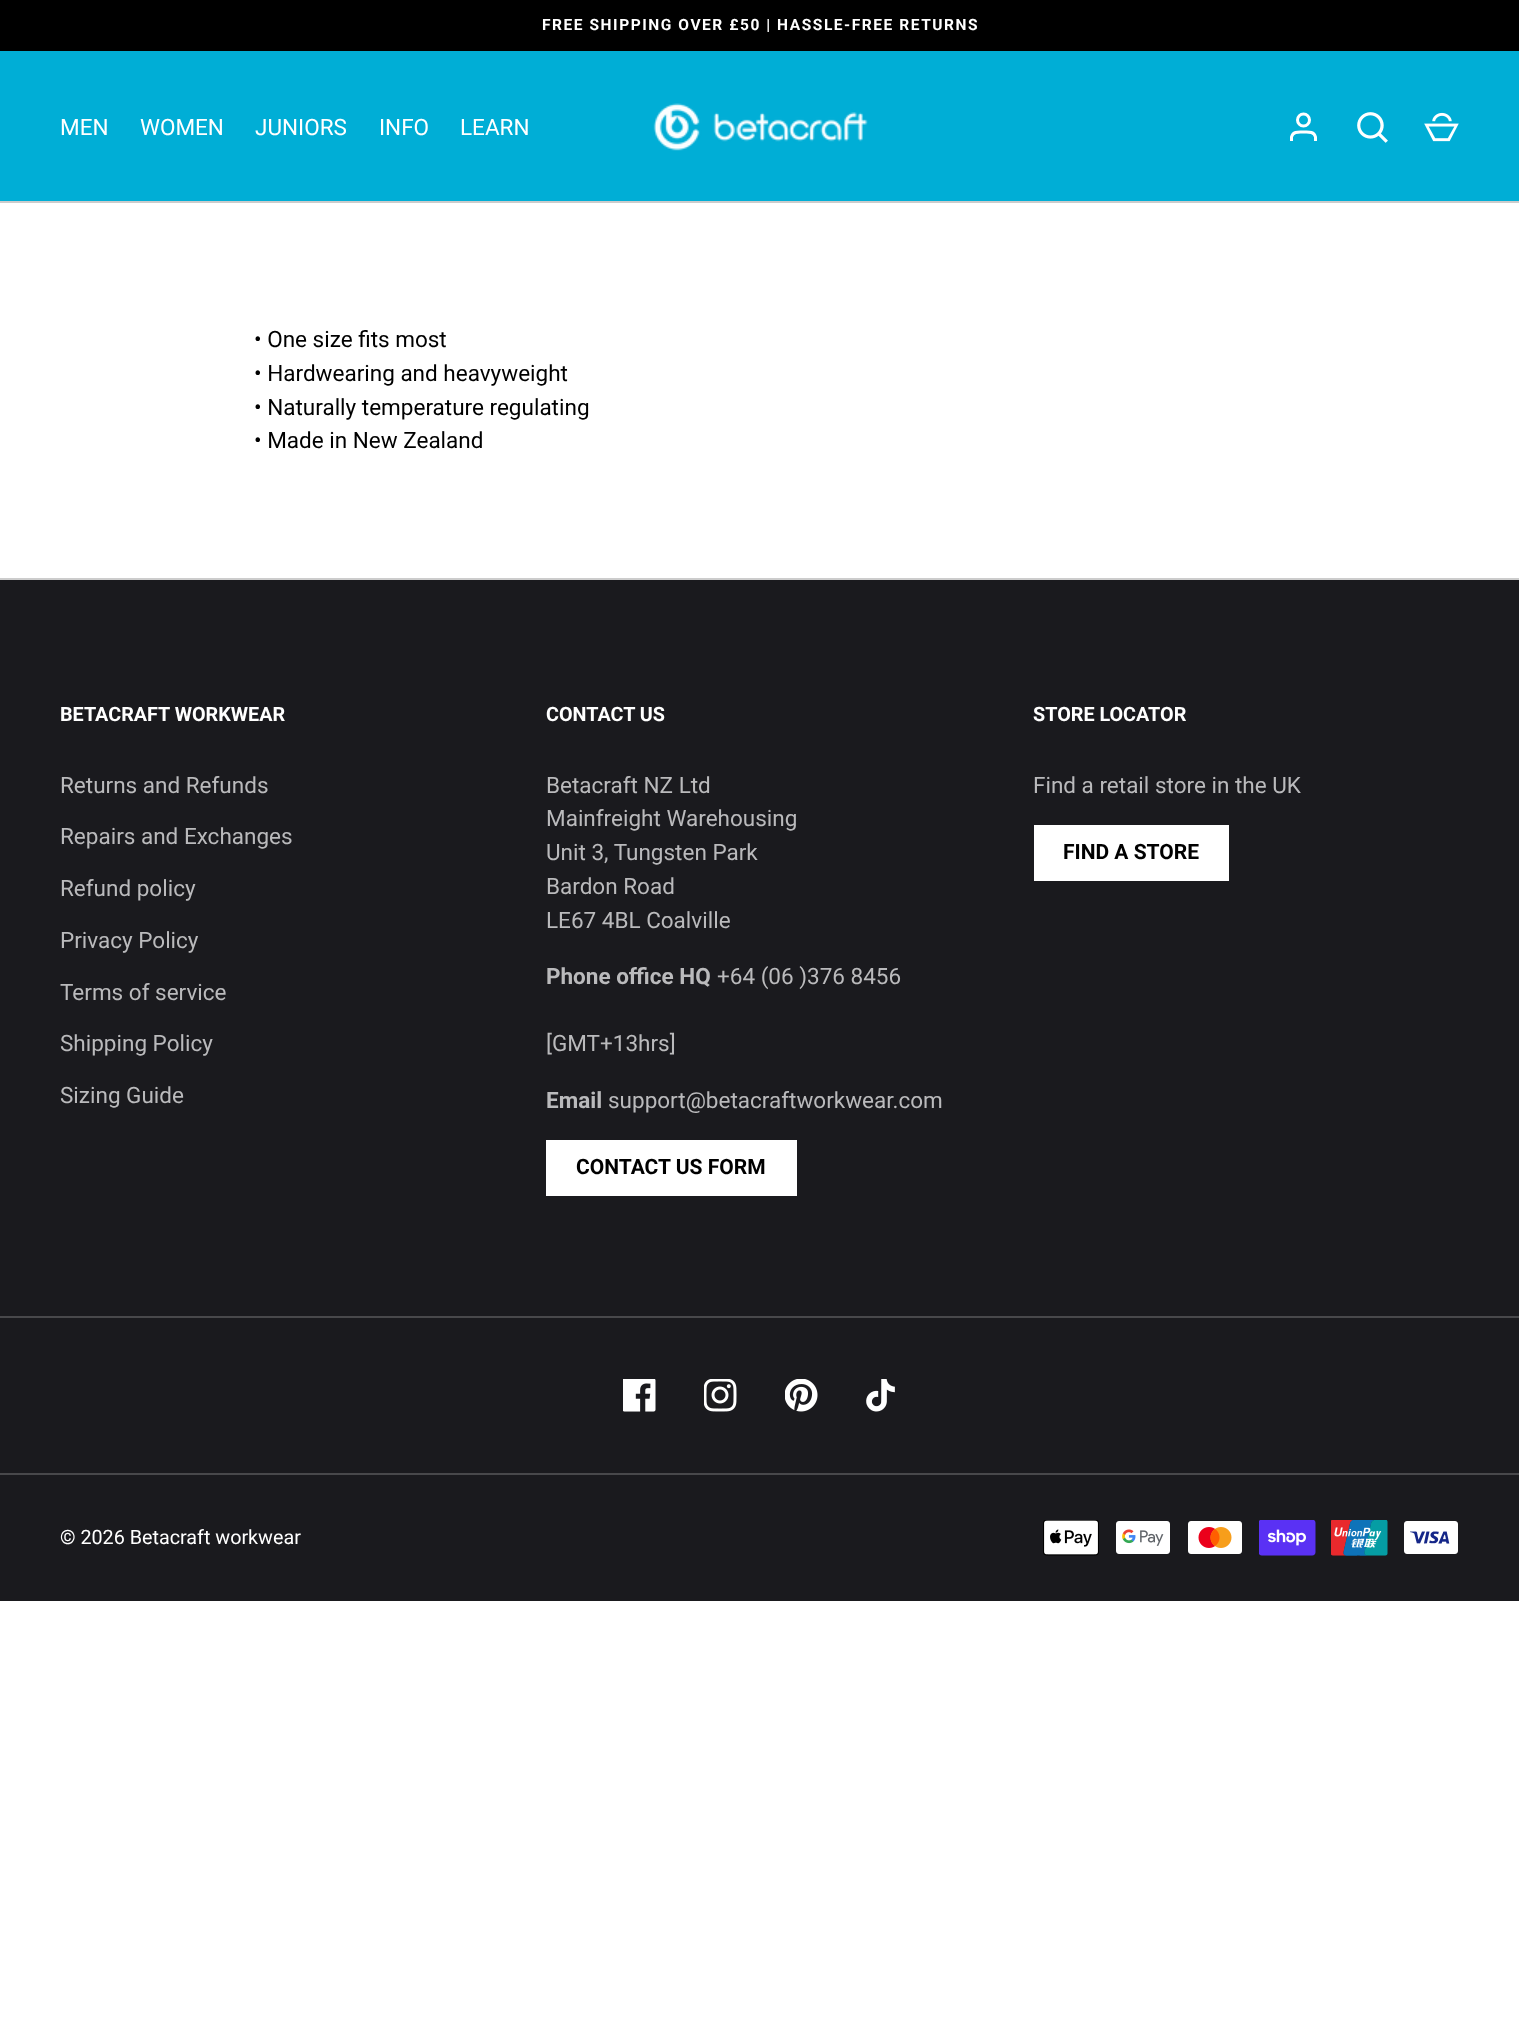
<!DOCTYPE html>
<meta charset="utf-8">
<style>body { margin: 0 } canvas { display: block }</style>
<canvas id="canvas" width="1519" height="2034"></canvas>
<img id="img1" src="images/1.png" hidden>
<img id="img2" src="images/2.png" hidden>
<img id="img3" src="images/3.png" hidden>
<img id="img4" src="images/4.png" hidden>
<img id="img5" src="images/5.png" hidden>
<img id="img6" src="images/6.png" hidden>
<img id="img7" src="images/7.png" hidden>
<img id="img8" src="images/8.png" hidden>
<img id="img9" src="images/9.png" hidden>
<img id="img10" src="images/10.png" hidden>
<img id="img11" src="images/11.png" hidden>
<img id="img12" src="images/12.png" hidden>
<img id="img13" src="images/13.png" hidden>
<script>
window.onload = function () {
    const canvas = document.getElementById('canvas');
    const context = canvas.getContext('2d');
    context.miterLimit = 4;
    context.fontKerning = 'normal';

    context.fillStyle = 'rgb(255, 255, 255)';
    context.fillRect(0, 0, 1519, 2034);
    context.fillStyle = 'rgb(0, 0, 0)';
    context.fillRect(0, 0, 1519, 51);
    context.fillStyle = 'rgb(0, 174, 214)';
    context.fillRect(0, 51, 1519, 150);
    context.fillStyle = 'rgb(204, 204, 204)';
    context.fillRect(0, 201, 1519, 2);
    context.drawImage(document.getElementById('img1'), 653, 103, 215, 48);
    context.beginPath();
    context.arc(1303.5, 120, 6, 0, 2 * Math.PI);
    context.strokeStyle = 'rgb(255, 255, 255)';
    context.lineWidth = 3;
    context.stroke();
    context.beginPath();
    context.moveTo(1315.5, 141);
    context.lineTo(1315.5, 137);
    context.bezierCurveTo(1314, 131, 1308, 132, 1303.5, 132);
    context.bezierCurveTo(1299, 132, 1293, 131, 1291.5, 137);
    context.lineTo(1291.5, 141);
    context.stroke();
    context.drawImage(document.getElementById('img2'), 1357, 112, 31, 31);
    context.drawImage(document.getElementById('img3'), 1424, 112, 35, 30);
    context.fillStyle = 'rgb(26, 26, 30)';
    context.fillRect(0, 580, 1519, 1021);
    context.fillStyle = 'rgb(204, 204, 204)';
    context.fillRect(0, 578, 1519, 2);
    context.fillStyle = 'rgb(255, 255, 255)';
    context.fillRect(546, 1140, 251, 56);
    context.fillRect(1034, 825, 195, 56);
    context.fillStyle = 'rgb(72, 72, 75)';
    context.fillRect(0, 1316, 1519, 2);
    context.drawImage(document.getElementById('img4'), 623, 1379, 33, 33);
    context.drawImage(document.getElementById('img5'), 704, 1379, 33, 33);
    context.drawImage(document.getElementById('img6'), 785, 1379, 33, 33);
    context.drawImage(document.getElementById('img7'), 866, 1379, 29, 33);
    context.fillRect(0, 1473, 1519, 2);
    context.drawImage(document.getElementById('img8'), 1043, 1520, 56, 36);
    context.drawImage(document.getElementById('img9'), 1116, 1521, 54, 33);
    context.drawImage(document.getElementById('img10'), 1188, 1521, 54, 33);
    context.drawImage(document.getElementById('img11'), 1259, 1520, 57, 36);
    context.drawImage(document.getElementById('img12'), 1331, 1520, 57, 36);
    context.drawImage(document.getElementById('img13'), 1404, 1521, 54, 33);
    context.letterSpacing = '1.55px';
    context.font = 'bold 15.5px Roboto';
    context.fillStyle = 'rgb(255, 255, 255)';
    context.fillText('FREE SHIPPING OVER £50 | HASSLE-FREE RETURNS', 542, 30);
    context.letterSpacing = '0px';
    context.font = '22.5px Roboto';
    context.fillText('MEN', 60, 135);
    context.fillText('WOMEN', 140, 135);
    context.fillText('JUNIORS', 255, 135);
    context.fillText('INFO', 379, 135);
    context.fillText('LEARN', 460, 135);
    context.fillStyle = 'rgb(0, 0, 0)';
    context.fillText('• One size fits most', 254, 347);
    context.fillText('• Hardwearing and heavyweight', 254, 381);
    context.fillText('• Naturally temperature regulating', 254, 415);
    context.fillText('• Made in New Zealand', 254, 448);
    context.font = 'bold 19.75px Roboto';
    context.fillStyle = 'rgb(255, 255, 255)';
    context.fillText('BETACRAFT WORKWEAR', 60, 721);
    context.font = '22.5px Roboto';
    context.fillStyle = 'rgb(186, 186, 188)';
    context.fillText('Returns and Refunds', 60, 793);
    context.fillText('Repairs and Exchanges', 60, 844);
    context.fillText('Refund policy', 60, 896);
    context.fillText('Privacy Policy', 60, 948);
    context.fillText('Terms of service', 60, 1000);
    context.fillText('Shipping Policy', 60, 1051);
    context.fillText('Sizing Guide', 60, 1103);
    context.font = 'bold 19.75px Roboto';
    context.fillStyle = 'rgb(255, 255, 255)';
    context.fillText('CONTACT US', 546, 721);
    context.font = '22.5px Roboto';
    context.fillStyle = 'rgb(186, 186, 188)';
    context.fillText('Betacraft NZ Ltd', 546, 793);
    context.fillText('Mainfreight Warehousing', 546, 826);
    context.fillText('Unit 3, Tungsten Park', 546, 860);
    context.fillText('Bardon Road', 546, 894);
    context.fillText('LE67 4BL Coalville', 546, 928);
    context.font = 'bold 22.5px Roboto';
    context.fillText('Phone office HQ', 546, 984);
    context.font = '22.5px Roboto';
    context.fillText('+64 (06 )376 8456', 717, 984);
    context.fillText('[GMT+13hrs]', 546, 1051);
    context.font = 'bold 22.5px Roboto';
    context.fillText('Email', 546, 1108);
    context.font = '22.5px Roboto';
    context.fillText('support@betacraftworkwear.com', 608, 1108);
    context.font = 'bold 21px Roboto';
    context.fillStyle = 'rgb(0, 0, 0)';
    context.fillText('CONTACT US FORM', 576, 1174);
    context.font = 'bold 19.75px Roboto';
    context.fillStyle = 'rgb(255, 255, 255)';
    context.fillText('STORE LOCATOR', 1033, 721);
    context.font = '22.5px Roboto';
    context.fillStyle = 'rgb(186, 186, 188)';
    context.fillText('Find a retail store in the UK', 1033, 793);
    context.font = 'bold 21px Roboto';
    context.fillStyle = 'rgb(0, 0, 0)';
    context.fillText('FIND A STORE', 1063, 859);
    context.font = '19.75px Roboto';
    context.fillStyle = 'rgb(255, 255, 255)';
    context.fillText('© 2026 Betacraft workwear', 60, 1544);
};
</script>
